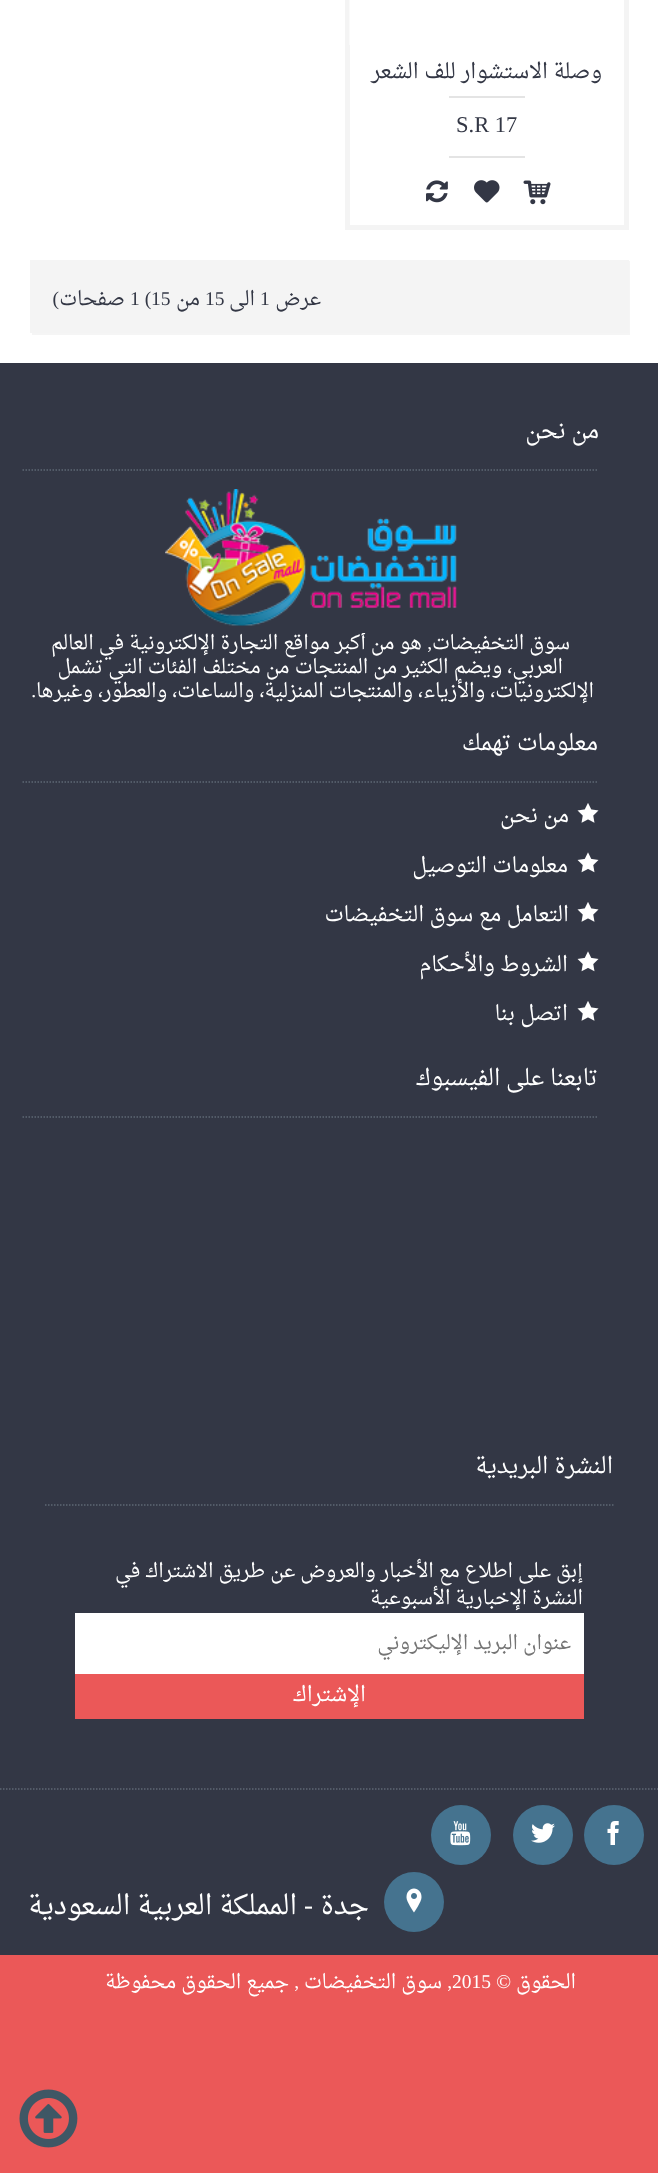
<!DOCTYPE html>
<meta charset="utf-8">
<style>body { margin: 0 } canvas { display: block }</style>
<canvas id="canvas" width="658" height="2173"></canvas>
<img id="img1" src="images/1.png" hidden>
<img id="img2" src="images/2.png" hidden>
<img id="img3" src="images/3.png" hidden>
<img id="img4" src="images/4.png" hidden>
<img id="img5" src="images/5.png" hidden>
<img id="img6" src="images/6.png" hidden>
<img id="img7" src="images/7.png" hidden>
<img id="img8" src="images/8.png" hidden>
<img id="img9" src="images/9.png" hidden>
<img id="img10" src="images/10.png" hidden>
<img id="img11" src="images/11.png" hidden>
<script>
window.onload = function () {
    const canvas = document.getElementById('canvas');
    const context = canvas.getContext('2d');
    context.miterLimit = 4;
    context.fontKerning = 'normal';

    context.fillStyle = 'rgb(255, 255, 255)';
    context.fillRect(0, 0, 658, 2173);
    context.strokeStyle = 'rgb(244, 244, 244)';
    context.lineWidth = 5;
    context.strokeRect(347.5, -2.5, 279, 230);
    context.fillStyle = 'rgb(250, 250, 250)';
    context.fillRect(349, 0, 1, 45);
    context.fillStyle = 'rgb(228, 228, 228)';
    context.fillRect(449, 96, 76, 2);
    context.fillRect(449, 156, 76, 2);
    context.drawImage(document.getElementById('img1'), 523, 180, 28, 25);
    context.drawImage(document.getElementById('img2'), 474, 180, 26, 23);
    context.drawImage(document.getElementById('img3'), 426, 180, 22, 23);
    context.fillStyle = 'rgb(245, 245, 245)';
    context.beginPath();
    context.moveTo(32, 333);
    context.lineTo(32, 335);
    context.lineTo(630, 335);
    context.lineTo(630, 261);
    context.lineTo(628, 261);
    context.lineTo(628, 333);
    context.closePath();
    context.fill();
    context.fillStyle = 'rgb(244, 244, 244)';
    context.fillRect(30, 260, 599, 73);
    context.fillStyle = 'rgb(51, 55, 69)';
    context.fillRect(0, 363, 658, 1592);
    context.beginPath();
    context.moveTo(22.5, 470);
    context.lineTo(598.5, 470);
    context.strokeStyle = 'rgb(95, 104, 116)';
    context.lineWidth = 1.5;
    context.setLineDash([1.5, 1.5]);
    context.stroke();
    context.drawImage(document.getElementById('img4'), 165, 489, 292, 137);
    context.beginPath();
    context.moveTo(22.5, 782);
    context.lineTo(598.5, 782);
    context.stroke();
    context.drawImage(document.getElementById('img5'), 577, 803, 22, 20);
    context.drawImage(document.getElementById('img6'), 577, 852, 22, 21);
    context.drawImage(document.getElementById('img5'), 577, 902, 22, 20);
    context.drawImage(document.getElementById('img6'), 577, 951, 22, 21);
    context.drawImage(document.getElementById('img5'), 577, 1001, 22, 20);
    context.beginPath();
    context.moveTo(22.5, 1117);
    context.lineTo(598.5, 1117);
    context.stroke();
    context.beginPath();
    context.moveTo(45, 1505);
    context.lineTo(613.5, 1505);
    context.stroke();
    context.fillStyle = 'rgb(255, 255, 255)';
    context.fillRect(75, 1613, 509, 61);
    context.fillStyle = 'rgb(235, 88, 88)';
    context.fillRect(75, 1674, 509, 45);
    context.beginPath();
    context.moveTo(0, 1789);
    context.lineTo(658.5, 1789);
    context.stroke();
    context.fillStyle = 'rgb(69, 115, 143)';
    context.beginPath();
    context.arc(614, 1835, 30, 0, 2 * Math.PI);
    context.fill();
    context.drawImage(document.getElementById('img7'), 607, 1821, 12, 24);
    context.beginPath();
    context.arc(543, 1835, 30, 0, 2 * Math.PI);
    context.fill();
    context.drawImage(document.getElementById('img8'), 531, 1823, 24, 20);
    context.beginPath();
    context.arc(461, 1835, 30, 0, 2 * Math.PI);
    context.fill();
    context.drawImage(document.getElementById('img9'), 450, 1821, 21, 25);
    context.beginPath();
    context.arc(414, 1902, 30, 0, 2 * Math.PI);
    context.fill();
    context.drawImage(document.getElementById('img10'), 406, 1888, 16, 25);
    context.fillStyle = 'rgb(235, 88, 88)';
    context.fillRect(0, 1955, 658, 218);
    context.drawImage(document.getElementById('img11'), 19, 2089, 59, 59);
    context.direction = 'rtl';
    context.font = '21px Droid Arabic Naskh';
    context.fillStyle = 'rgb(51, 55, 69)';
    context.fillText('وصلة الاستشوار للف الشعر', 602, 78);
    context.direction = 'ltr';
    context.font = '22.5px Liberation Serif';
    context.fillText('S.R 17', 456, 132);
    context.direction = 'rtl';
    context.font = '19.5px Droid Arabic Naskh';
    context.fillText('عرض', 321, 305);
    context.direction = 'ltr';
    context.font = '19.5px Liberation Serif';
    context.fillText('1', 260, 305);
    context.direction = 'rtl';
    context.font = '19.5px Droid Arabic Naskh';
    context.fillText('الى', 255, 305);
    context.direction = 'ltr';
    context.font = '19.5px Liberation Serif';
    context.fillText('15', 205, 305);
    context.direction = 'rtl';
    context.font = '19.5px Droid Arabic Naskh';
    context.fillText('من', 200, 305);
    context.direction = 'ltr';
    context.font = '19.5px Liberation Serif';
    context.fillText('1 (15', 130, 305);
    context.direction = 'rtl';
    context.font = '19.5px Droid Arabic Naskh';
    context.fillText('صفحات', 125, 305);
    context.font = '19.5px Liberation Serif';
    context.fillText(')', 59, 305);
    context.font = '22.5px Droid Arabic Naskh';
    context.fillStyle = 'rgb(255, 255, 255)';
    context.fillText('من نحن', 599, 438);
    context.font = '19.5px Droid Arabic Naskh';
    context.fillText('سوق التخفيضات', 570, 649);
    context.font = '19.5px Liberation Serif';
    context.fillText(',', 432, 649);
    context.save();
    context.beginPath();
    context.rect(23, 633, 576, 72);
    context.clip();
    context.font = '19.5px Droid Arabic Naskh';
    context.fillText('هو من أكبر مواقع التجارة الإلكترونية في العالم', 422, 649);
    context.restore();
    context.font = '19.5px Droid Arabic Naskh';
    context.fillText('العربي، ويضم الكثير من المنتجات من مختلف الفئات التي تشمل', 563, 673);
    context.fillText('الإلكترونيات، والأزياء، والمنتجات المنزلية، والساعات، والعطور، وغيرها', 594, 697);
    context.font = '19.5px Liberation Serif';
    context.fillText('.', 36, 697);
    context.font = '22.5px Droid Arabic Naskh';
    context.fillText('معلومات تهمك', 598, 750);
    context.font = '21px Droid Arabic Naskh';
    context.fillText('من نحن', 569, 822);
    context.fillText('معلومات التوصيل', 568, 872);
    context.fillText('التعامل مع سوق التخفيضات', 569, 921);
    context.fillText('الشروط والأحكام', 568, 971);
    context.fillText('اتصل بنا', 568, 1020);
    context.font = '22.5px Droid Arabic Naskh';
    context.fillText('تابعنا على الفيسبوك', 598, 1085);
    context.fillText('النشرة البريدية', 613, 1473);
    context.font = '19.5px Droid Arabic Naskh';
    context.fillText('إبق على اطلاع مع الأخبار والعروض عن طريق الاشتراك في', 583, 1577);
    context.fillText('النشرة الإخبارية الأسبوعية', 583, 1604);
    context.fillStyle = 'rgb(117, 117, 117)';
    context.fillText('عنوان البريد الإليكتروني', 571, 1649);
    context.font = '21px Droid Arabic Naskh';
    context.fillStyle = 'rgb(255, 255, 255)';
    context.fillText('الإشتراك', 366, 1701);
    context.font = '27px Droid Arabic Naskh';
    context.fillText('جدة', 369, 1914);
    context.font = '27px Liberation Serif';
    context.fillText('-', 313, 1914);
    context.font = '27px Droid Arabic Naskh';
    context.fillText('المملكة العربية السعودية', 297, 1914);
    context.font = '19.5px Droid Arabic Naskh';
    context.fillText('الحقوق', 576, 1988);
    context.font = '19.5px Liberation Serif';
    context.fillText('©', 511, 1988);
    context.direction = 'ltr';
    context.fillText('2015', 452, 1988);
    context.direction = 'rtl';
    context.fillText(',', 452, 1988);
    context.font = '19.5px Droid Arabic Naskh';
    context.fillText('سوق التخفيضات', 442, 1988);
    context.font = '19.5px Liberation Serif';
    context.fillText(',', 299, 1988);
    context.font = '19.5px Droid Arabic Naskh';
    context.fillText('جميع الحقوق محفوظة', 289, 1988);
};
</script>
